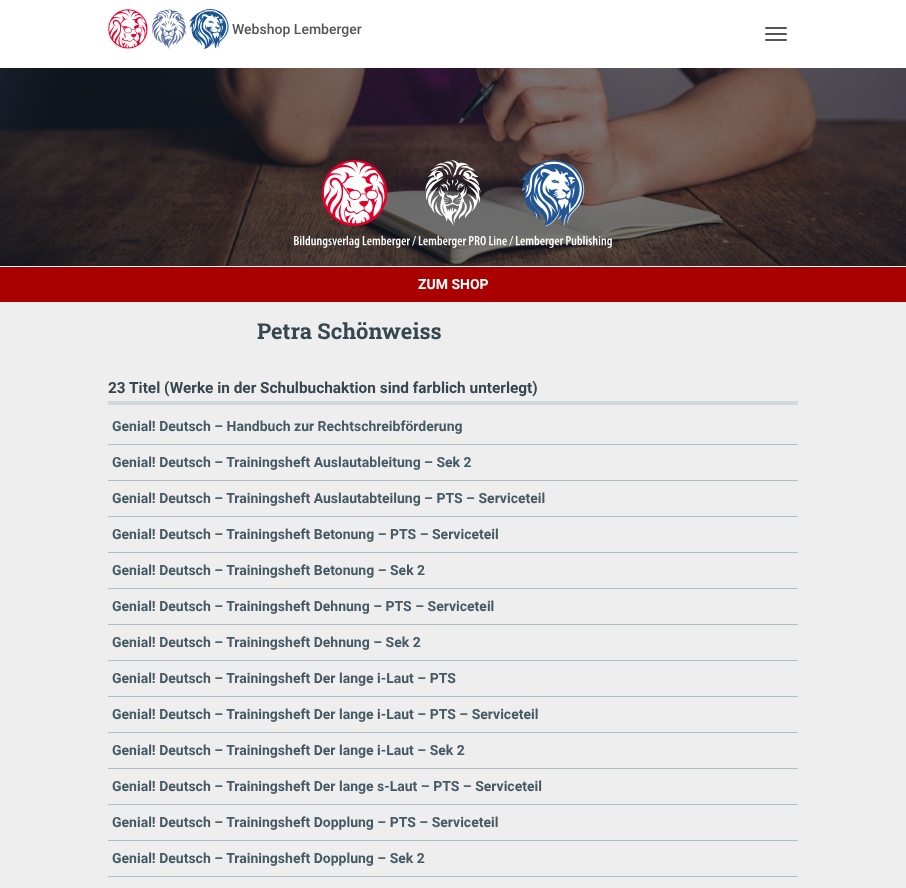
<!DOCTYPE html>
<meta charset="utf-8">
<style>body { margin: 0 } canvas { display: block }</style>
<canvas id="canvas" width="906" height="888"></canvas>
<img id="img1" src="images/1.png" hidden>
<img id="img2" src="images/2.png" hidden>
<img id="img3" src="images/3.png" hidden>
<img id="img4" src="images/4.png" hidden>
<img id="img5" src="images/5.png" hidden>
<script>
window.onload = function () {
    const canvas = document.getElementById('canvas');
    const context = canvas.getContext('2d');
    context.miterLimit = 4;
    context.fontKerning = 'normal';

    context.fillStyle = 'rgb(238, 238, 238)';
    context.fillRect(0, 0, 906, 888);
    context.fillStyle = 'rgb(255, 255, 255)';
    context.fillRect(0, 0, 906, 68);
    context.drawImage(document.getElementById('img1'), 108, 9, 40, 40);
    context.drawImage(document.getElementById('img2'), 152, 9, 34, 40);
    context.drawImage(document.getElementById('img3'), 189, 9, 40, 40);
    context.fillStyle = 'rgb(85, 85, 85)';
    context.beginPath();
    context.roundRect(765, 27, 22, 2, 1);
    context.fill();
    context.beginPath();
    context.roundRect(765, 33, 22, 2, 1);
    context.fill();
    context.beginPath();
    context.roundRect(765, 39, 22, 2, 1);
    context.fill();
    context.drawImage(document.getElementById('img4'), 0, 68, 906, 198);
    context.drawImage(document.getElementById('img5'), 294, 160, 318, 88);
    context.fillStyle = 'rgb(171, 0, 0)';
    context.fillRect(0, 267, 906, 35);
    context.fillStyle = 'rgb(255, 255, 255)';
    context.fillRect(0, 266, 906, 1);
    context.fillStyle = 'rgb(207, 216, 220)';
    context.fillRect(108, 401, 690, 4);
    context.fillStyle = 'rgb(176, 190, 197)';
    context.fillRect(108, 444, 690, 1);
    context.fillRect(108, 480, 690, 1);
    context.fillRect(108, 516, 690, 1);
    context.fillRect(108, 552, 690, 1);
    context.fillRect(108, 588, 690, 1);
    context.fillRect(108, 624, 690, 1);
    context.fillRect(108, 660, 690, 1);
    context.fillRect(108, 696, 690, 1);
    context.fillRect(108, 732, 690, 1);
    context.fillRect(108, 768, 690, 1);
    context.fillRect(108, 804, 690, 1);
    context.fillRect(108, 840, 690, 1);
    context.fillRect(108, 876, 690, 1);
    context.font = '500 14px Roboto';
    context.fillStyle = 'rgb(85, 85, 85)';
    context.fillText('Webshop Lemberger', 232, 34);
    context.font = 'bold 14px Roboto';
    context.fillStyle = 'rgb(255, 255, 255)';
    context.fillText('ZUM SHOP', 418, 289);
    context.font = 'bold 21.9px Roboto Slab';
    context.fillStyle = 'rgb(55, 71, 79)';
    context.fillText('Petra Schönweiss', 257, 339);
    context.font = 'bold 15.4px Roboto';
    context.fillText('23 Titel (Werke in der Schulbuchaktion sind farblich unterlegt)', 108, 393);
    context.font = 'bold 14px Roboto';
    context.fillStyle = 'rgb(69, 90, 100)';
    context.fillText('Genial! Deutsch – Handbuch zur Rechtschreibförderung', 112, 431);
    context.fillText('Genial! Deutsch – Trainingsheft Auslautableitung – Sek 2', 112, 467);
    context.fillText('Genial! Deutsch – Trainingsheft Auslautabteilung – PTS – Serviceteil', 112, 503);
    context.fillText('Genial! Deutsch – Trainingsheft Betonung – PTS – Serviceteil', 112, 539);
    context.fillText('Genial! Deutsch – Trainingsheft Betonung – Sek 2', 112, 575);
    context.fillText('Genial! Deutsch – Trainingsheft Dehnung – PTS – Serviceteil', 112, 611);
    context.fillText('Genial! Deutsch – Trainingsheft Dehnung – Sek 2', 112, 647);
    context.fillText('Genial! Deutsch – Trainingsheft Der lange i-Laut – PTS', 112, 683);
    context.fillText('Genial! Deutsch – Trainingsheft Der lange i-Laut – PTS – Serviceteil', 112, 719);
    context.fillText('Genial! Deutsch – Trainingsheft Der lange i-Laut – Sek 2', 112, 755);
    context.fillText('Genial! Deutsch – Trainingsheft Der lange s-Laut – PTS – Serviceteil', 112, 791);
    context.fillText('Genial! Deutsch – Trainingsheft Dopplung – PTS – Serviceteil', 112, 827);
    context.fillText('Genial! Deutsch – Trainingsheft Dopplung – Sek 2', 112, 863);
};
</script>
